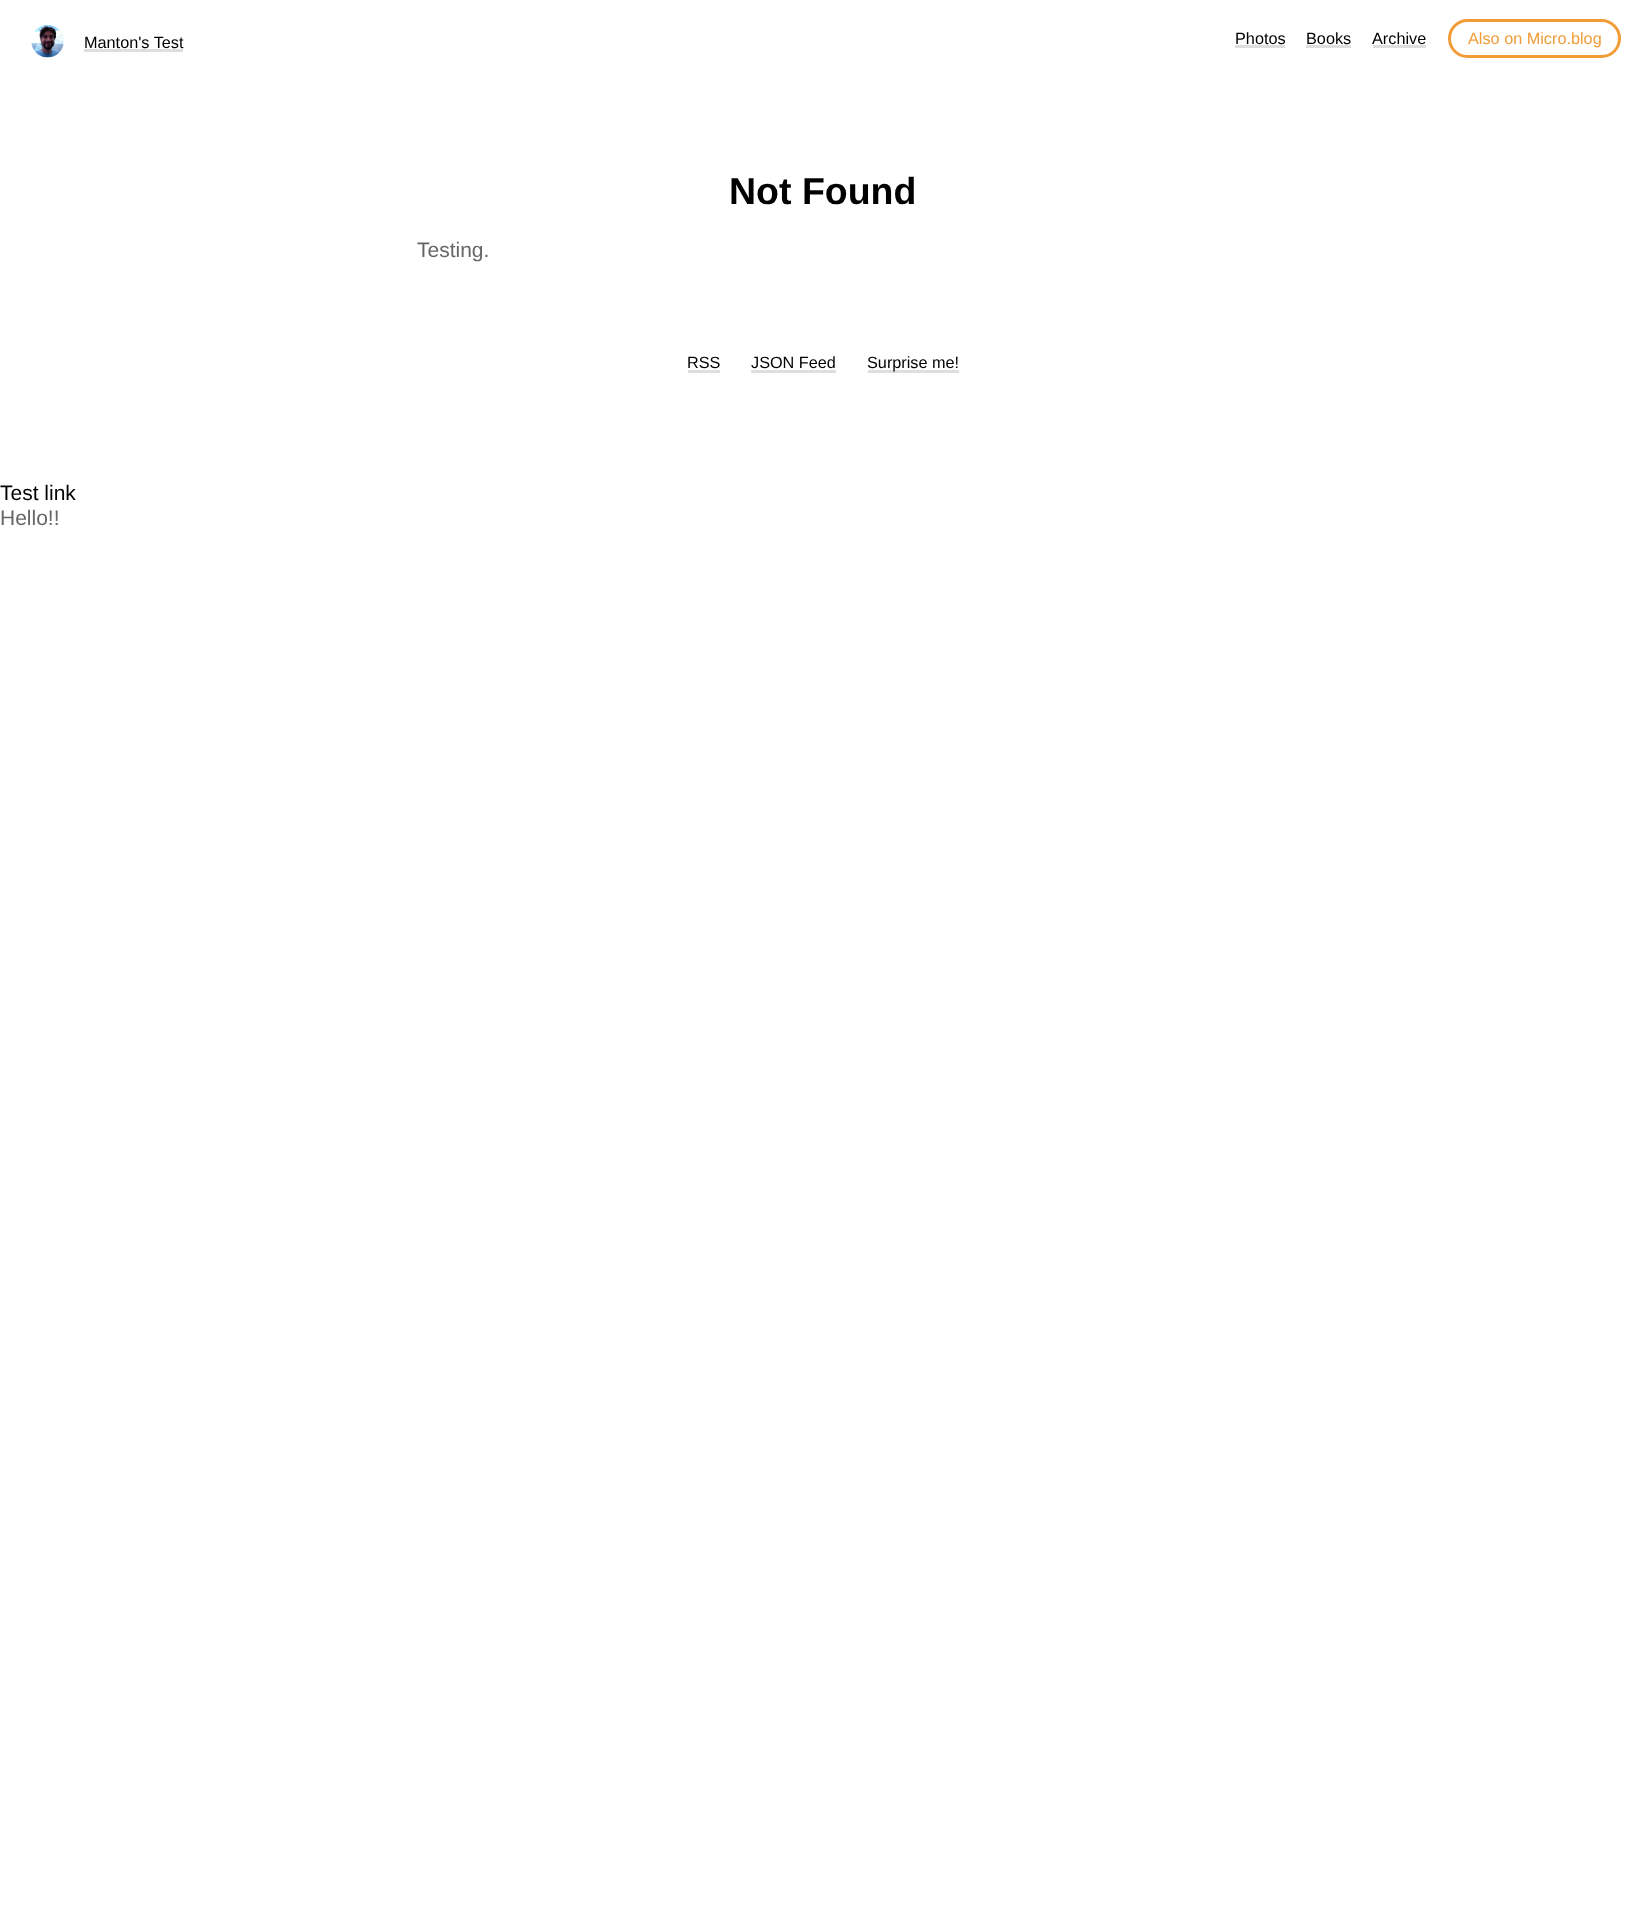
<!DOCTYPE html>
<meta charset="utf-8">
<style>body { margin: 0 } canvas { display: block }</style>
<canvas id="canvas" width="1646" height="1915"></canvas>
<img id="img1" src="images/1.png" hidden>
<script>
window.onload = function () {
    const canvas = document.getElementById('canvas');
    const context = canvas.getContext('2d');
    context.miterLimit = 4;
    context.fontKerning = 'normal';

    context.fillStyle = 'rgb(255, 255, 255)';
    context.fillRect(0, 0, 1646, 1915);
    context.drawImage(document.getElementById('img1'), 31, 25, 33, 33);
    context.fillStyle = 'rgb(222, 222, 222)';
    context.fillRect(84, 49, 99, 3);
    context.fillRect(1235, 45, 50, 3);
    context.fillRect(1306, 45, 45, 3);
    context.fillRect(1373, 45, 53, 3);
    context.beginPath();
    context.roundRect(1449.5, 20.5, 170, 36, 18);
    context.strokeStyle = 'rgb(242, 156, 56)';
    context.lineWidth = 3;
    context.stroke();
    context.fillRect(688, 370, 32, 3);
    context.fillRect(751, 370, 85, 3);
    context.fillRect(868, 370, 91, 3);
    context.font = '16.25px Liberation Sans';
    context.fillStyle = 'rgb(0, 0, 0)';
    context.fillText('Manton\'s Test', 84, 48);
    context.fillText('Photos', 1235, 44);
    context.fillText('Books', 1306, 44);
    context.fillText('Archive', 1372, 44);
    context.fillStyle = 'rgb(242, 156, 56)';
    context.fillText('Also on Micro.blog', 1468, 44);
    context.font = 'bold 37.5px Liberation Sans';
    context.fillStyle = 'rgb(0, 0, 0)';
    context.fillText('Not Found', 729, 204);
    context.font = '21px Liberation Sans';
    context.fillStyle = 'rgb(102, 102, 102)';
    context.fillText('Testing.', 417, 257);
    context.font = '16.25px Liberation Sans';
    context.fillStyle = 'rgb(0, 0, 0)';
    context.fillText('RSS', 687, 368);
    context.fillText('JSON Feed', 751, 368);
    context.fillText('Surprise me!', 867, 368);
    context.font = '21px Liberation Sans';
    context.fillText('Test link', 0, 500);
    context.fillStyle = 'rgb(102, 102, 102)';
    context.fillText('Hello!!', 0, 525);
};
</script>
